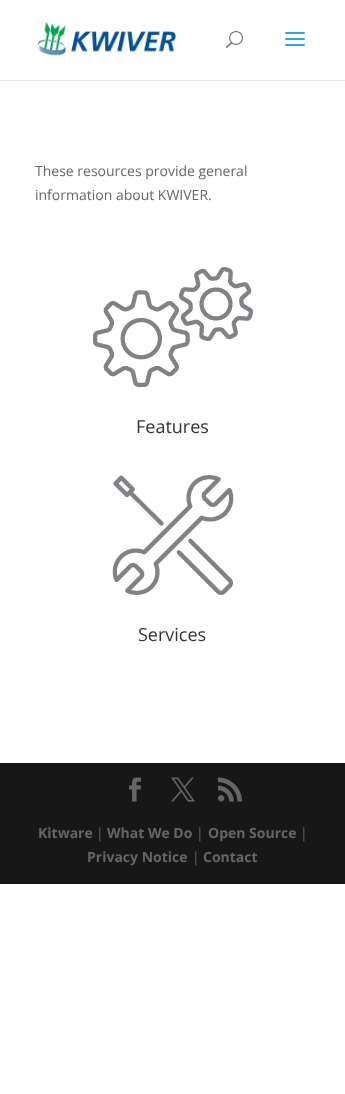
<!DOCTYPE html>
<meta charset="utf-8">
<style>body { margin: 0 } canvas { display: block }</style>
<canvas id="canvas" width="345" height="1094"></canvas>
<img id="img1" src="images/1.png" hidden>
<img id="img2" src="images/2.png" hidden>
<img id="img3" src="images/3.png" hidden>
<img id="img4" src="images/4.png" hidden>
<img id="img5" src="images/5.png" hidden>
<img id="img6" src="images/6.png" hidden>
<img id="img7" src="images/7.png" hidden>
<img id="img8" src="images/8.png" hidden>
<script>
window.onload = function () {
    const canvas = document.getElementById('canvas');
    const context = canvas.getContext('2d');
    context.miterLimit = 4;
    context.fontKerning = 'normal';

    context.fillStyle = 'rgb(255, 255, 255)';
    context.fillRect(0, 0, 345, 1094);
    context.fillStyle = 'rgb(230, 230, 230)';
    context.fillRect(0, 80, 345, 1);
    context.drawImage(document.getElementById('img1'), 38, 22, 138, 34);
    context.drawImage(document.getElementById('img2'), 226, 31, 17, 18);
    context.drawImage(document.getElementById('img3'), 285, 32, 20, 14);
    context.drawImage(document.getElementById('img4'), 93, 267, 160, 120);
    context.drawImage(document.getElementById('img5'), 112, 475, 122, 120);
    context.fillStyle = 'rgb(23, 23, 23)';
    context.fillRect(0, 763, 345, 121);
    context.drawImage(document.getElementById('img6'), 129, 777, 12, 25);
    context.drawImage(document.getElementById('img7'), 171, 777, 24, 25);
    context.drawImage(document.getElementById('img8'), 218, 777, 24, 25);
    context.font = '14px Open Sans';
    context.fillStyle = 'rgb(102, 102, 102)';
    context.fillText('These resources provide general', 35, 176);
    context.fillText('information about KWIVER.', 35, 200);
    context.font = '18px Open Sans';
    context.fillStyle = 'rgb(51, 51, 51)';
    context.fillText('Features', 136, 433);
    context.fillText('Services', 138, 641);
    context.font = 'bold 14px Open Sans';
    context.fillStyle = 'rgb(102, 102, 102)';
    context.fillText('Kitware', 38, 838);
    context.font = '14px Open Sans';
    context.fillText('|', 96, 838);
    context.font = 'bold 14px Open Sans';
    context.fillText('What We Do', 107, 838);
    context.font = '14px Open Sans';
    context.fillText('|', 196, 838);
    context.font = 'bold 14px Open Sans';
    context.fillText('Open Source', 208, 838);
    context.font = '14px Open Sans';
    context.fillText('|', 300, 838);
    context.font = 'bold 14px Open Sans';
    context.fillText('Privacy Notice', 87, 862);
    context.font = '14px Open Sans';
    context.fillText('|', 192, 862);
    context.font = 'bold 14px Open Sans';
    context.fillText('Contact', 203, 862);
};
</script>
